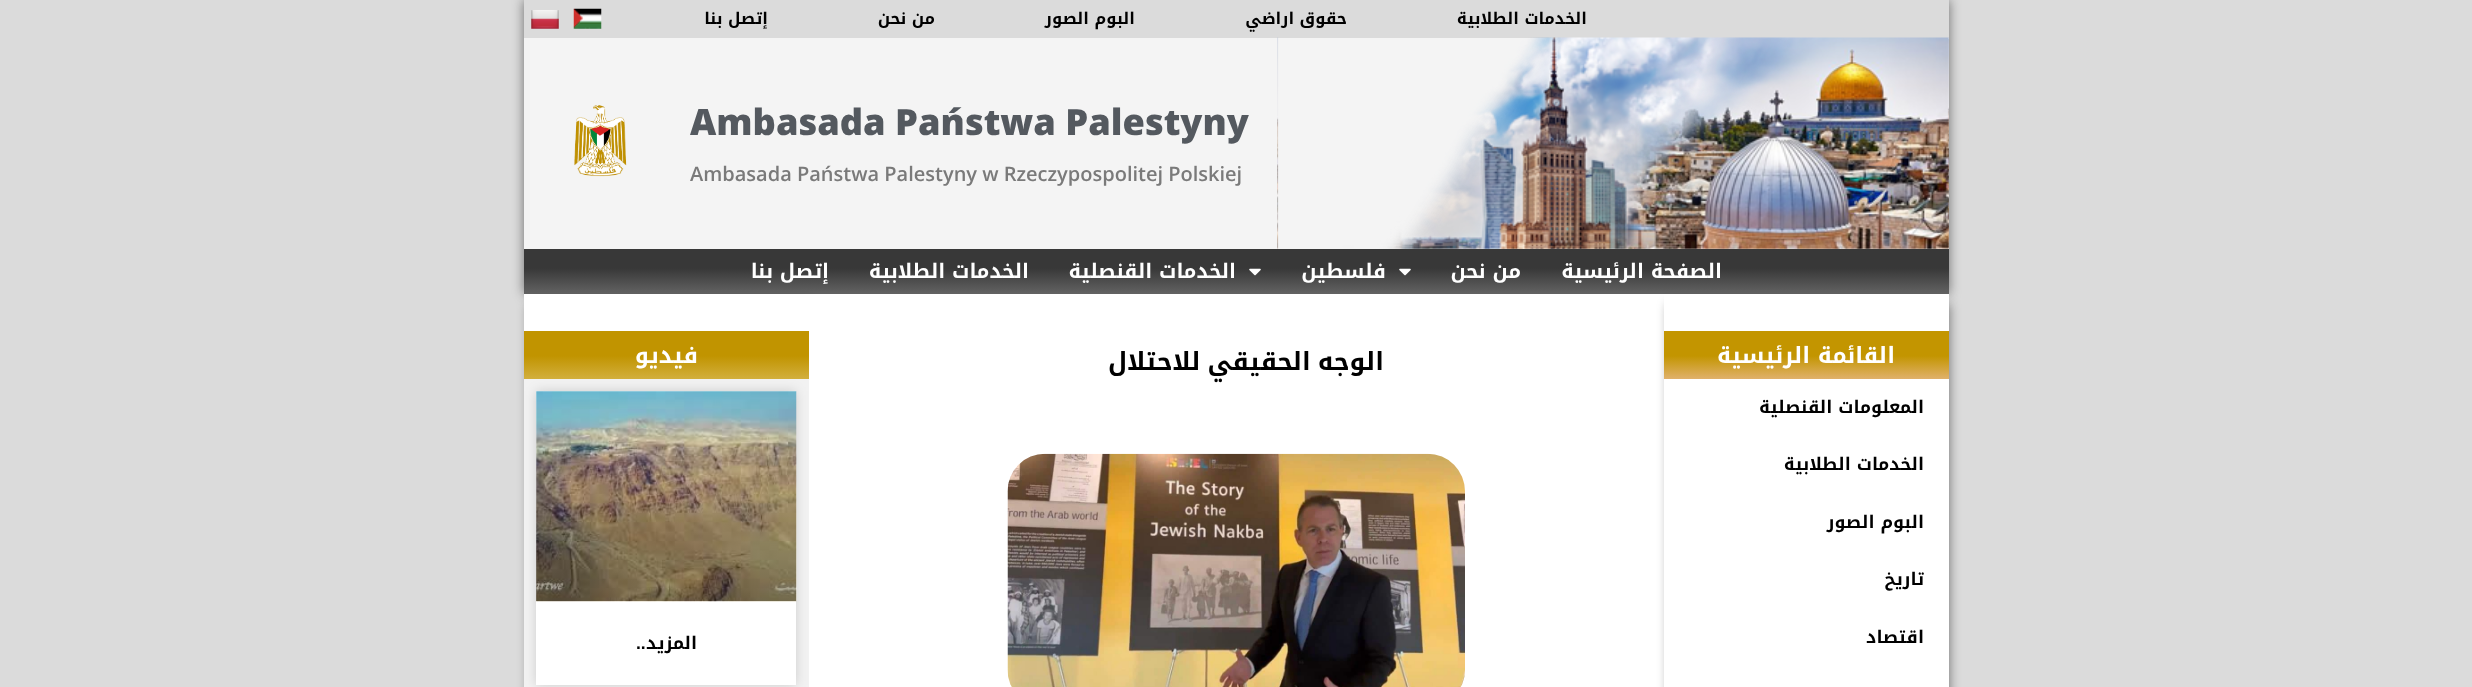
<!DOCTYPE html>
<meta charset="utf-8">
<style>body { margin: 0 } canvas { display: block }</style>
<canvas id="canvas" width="2472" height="687"></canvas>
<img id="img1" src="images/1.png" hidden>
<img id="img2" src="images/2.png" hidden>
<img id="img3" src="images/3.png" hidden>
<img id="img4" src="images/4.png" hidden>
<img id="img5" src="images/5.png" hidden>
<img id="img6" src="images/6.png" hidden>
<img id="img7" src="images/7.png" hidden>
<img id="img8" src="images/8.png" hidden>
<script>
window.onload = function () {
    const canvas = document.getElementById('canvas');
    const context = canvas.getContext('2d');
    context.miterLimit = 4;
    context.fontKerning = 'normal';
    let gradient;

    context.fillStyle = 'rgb(219, 219, 219)';
    context.fillRect(0, 0, 2472, 687);
    context.save();
    context.beginPath();
    context.moveTo(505, 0);
    context.lineTo(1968, 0);
    context.lineTo(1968, 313);
    context.lineTo(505, 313);
    context.closePath();
    context.moveTo(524, 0);
    context.lineTo(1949, 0);
    context.lineTo(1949, 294);
    context.lineTo(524, 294);
    context.closePath();
    context.clip('evenodd');
    context.fillStyle = 'rgba(0, 0, 0, 0.5)';
    context.filter = 'blur(6px)';
    context.beginPath();
    context.rect(524, 0, 1425, 294);
    context.fill();
    context.filter = 'none';
    context.restore();
    context.drawImage(document.getElementById('img1'), 573, 8, 29, 21);
    context.drawImage(document.getElementById('img2'), 531, 10, 28, 19);
    context.fillStyle = 'rgb(244, 244, 244)';
    context.fillRect(524, 38, 1425, 211);
    context.drawImage(document.getElementById('img3'), 1421, 38, 528, 210);
    context.drawImage(document.getElementById('img4'), 1277, 37, 672, 212);
    context.drawImage(document.getElementById('img5'), 574, 105, 53, 72);
    gradient = context.createLinearGradient(1236, 249, 1236, 294);
    gradient.addColorStop(0.43, 'rgb(56, 56, 56)');
    gradient.addColorStop(1, 'rgb(99, 99, 99)');
    context.fillStyle = gradient;
    context.fillRect(524, 249, 1425, 45);
    context.drawImage(document.getElementById('img6'), 1399, 268, 12, 8);
    context.drawImage(document.getElementById('img6'), 1249, 268, 12, 8);
    context.fillStyle = 'rgba(0, 0, 0, 0.5)';
    context.filter = 'blur(6px)';
    context.beginPath();
    context.rect(529, 304, 280, 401);
    context.fill();
    context.filter = 'none';
    gradient = context.createLinearGradient(666, 331, 666, 379);
    gradient.addColorStop(0.52, 'rgb(193, 148, 0)');
    gradient.addColorStop(1, 'rgb(210, 175, 61)');
    context.fillStyle = gradient;
    context.fillRect(524, 331, 285, 48);
    context.fillStyle = 'rgb(242, 242, 242)';
    context.fillRect(524, 379, 285, 308);
    context.fillStyle = 'rgba(0, 0, 0, 0.15)';
    context.filter = 'blur(6px)';
    context.beginPath();
    context.rect(536, 391, 260, 294);
    context.fill();
    context.filter = 'none';
    context.fillStyle = 'rgb(255, 255, 255)';
    context.fillRect(809, 294, 855, 393);
    context.fillStyle = 'rgba(0, 0, 0, 0.5)';
    context.filter = 'blur(6px)';
    context.beginPath();
    context.rect(1669, 304, 280, 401);
    context.fill();
    context.filter = 'none';
    context.fillStyle = 'rgb(255, 255, 255)';
    context.fillRect(1664, 294, 285, 393);
    gradient = context.createLinearGradient(1806, 331, 1806, 379);
    gradient.addColorStop(0.52, 'rgb(195, 149, 0)');
    gradient.addColorStop(1, 'rgb(224, 177, 107)');
    context.fillStyle = gradient;
    context.fillRect(1664, 331, 285, 48);
    context.drawImage(document.getElementById('img7'), 1007, 453, 458, 234);
    context.fillStyle = 'rgb(255, 255, 255)';
    context.fillRect(524, 294, 285, 37);
    context.fillRect(536, 391, 260, 294);
    context.drawImage(document.getElementById('img8'), 536, 391, 261, 211);
    gradient = context.createLinearGradient(666, 601, 666, 391);
    gradient.addColorStop(0, 'rgba(0, 0, 0, 0.35)');
    gradient.addColorStop(0.75, 'rgba(0, 0, 0, 0)');
    context.fillStyle = gradient;
    context.fillRect(536, 453, 260, 148);
    context.direction = 'rtl';
    context.font = 'bold 16.25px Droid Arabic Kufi';
    context.fillStyle = 'rgb(0, 0, 0)';
    context.fillText('الخدمات الطلابية', 1587, 24);
    context.fillText('حقوق اراضي', 1347, 24);
    context.fillText('البوم الصور', 1135, 24);
    context.fillText('من نحن', 935, 24);
    context.fillText('إتصل بنا', 768, 24);
    context.direction = 'ltr';
    context.font = '800 36.25px Open Sans';
    context.fillStyle = 'rgb(84, 89, 95)';
    context.fillText('Ambasada Państwa Palestyny', 690, 135);
    context.font = '600 20px Open Sans';
    context.fillStyle = 'rgb(122, 122, 122)';
    context.fillText('Ambasada Państwa Palestyny w Rzeczypospolitej Polskiej', 690, 181);
    context.direction = 'rtl';
    context.font = 'bold 20px Droid Arabic Kufi';
    context.fillStyle = 'rgb(255, 255, 255)';
    context.fillText('الصفحة الرئيسية', 1722, 278);
    context.fillText('من نحن', 1521, 278);
    context.fillText('فلسطين', 1386, 278);
    context.fillText('الخدمات القنصلية', 1236, 278);
    context.fillText('الخدمات الطلابية', 1029, 278);
    context.fillText('إتصل بنا', 829, 278);
    context.font = 'bold 22.5px Droid Arabic Kufi';
    context.fillText('القائمة الرئيسية', 1895, 363);
    context.font = 'bold 17.5px Droid Arabic Kufi';
    context.fillStyle = 'rgb(0, 0, 0)';
    context.fillText('المعلومات القنصلية', 1924, 413);
    context.fillText('الخدمات الطلابية', 1924, 470);
    context.fillText('البوم الصور', 1924, 528);
    context.fillText('تاريخ', 1924, 585);
    context.fillText('اقتصاد', 1924, 643);
    context.letterSpacing = '0.5px';
    context.wordSpacing = '-2px';
    context.font = 'bold 25px Droid Arabic Kufi';
    context.fillText('الوجه الحقيقي للاحتلال', 1384, 370);
    context.letterSpacing = '0px';
    context.wordSpacing = '0px';
    context.font = 'bold 22.5px Droid Arabic Kufi';
    context.fillStyle = 'rgb(255, 255, 255)';
    context.fillText('فيديو', 698, 363);
    context.font = 'bold 17.5px Droid Arabic Kufi';
    context.fillStyle = 'rgb(0, 0, 0)';
    context.fillText('المزيد', 697, 649);
    context.direction = 'ltr';
    context.font = 'bold 17.5px Liberation Sans';
    context.fillText('..', 636, 649);
};
</script>
